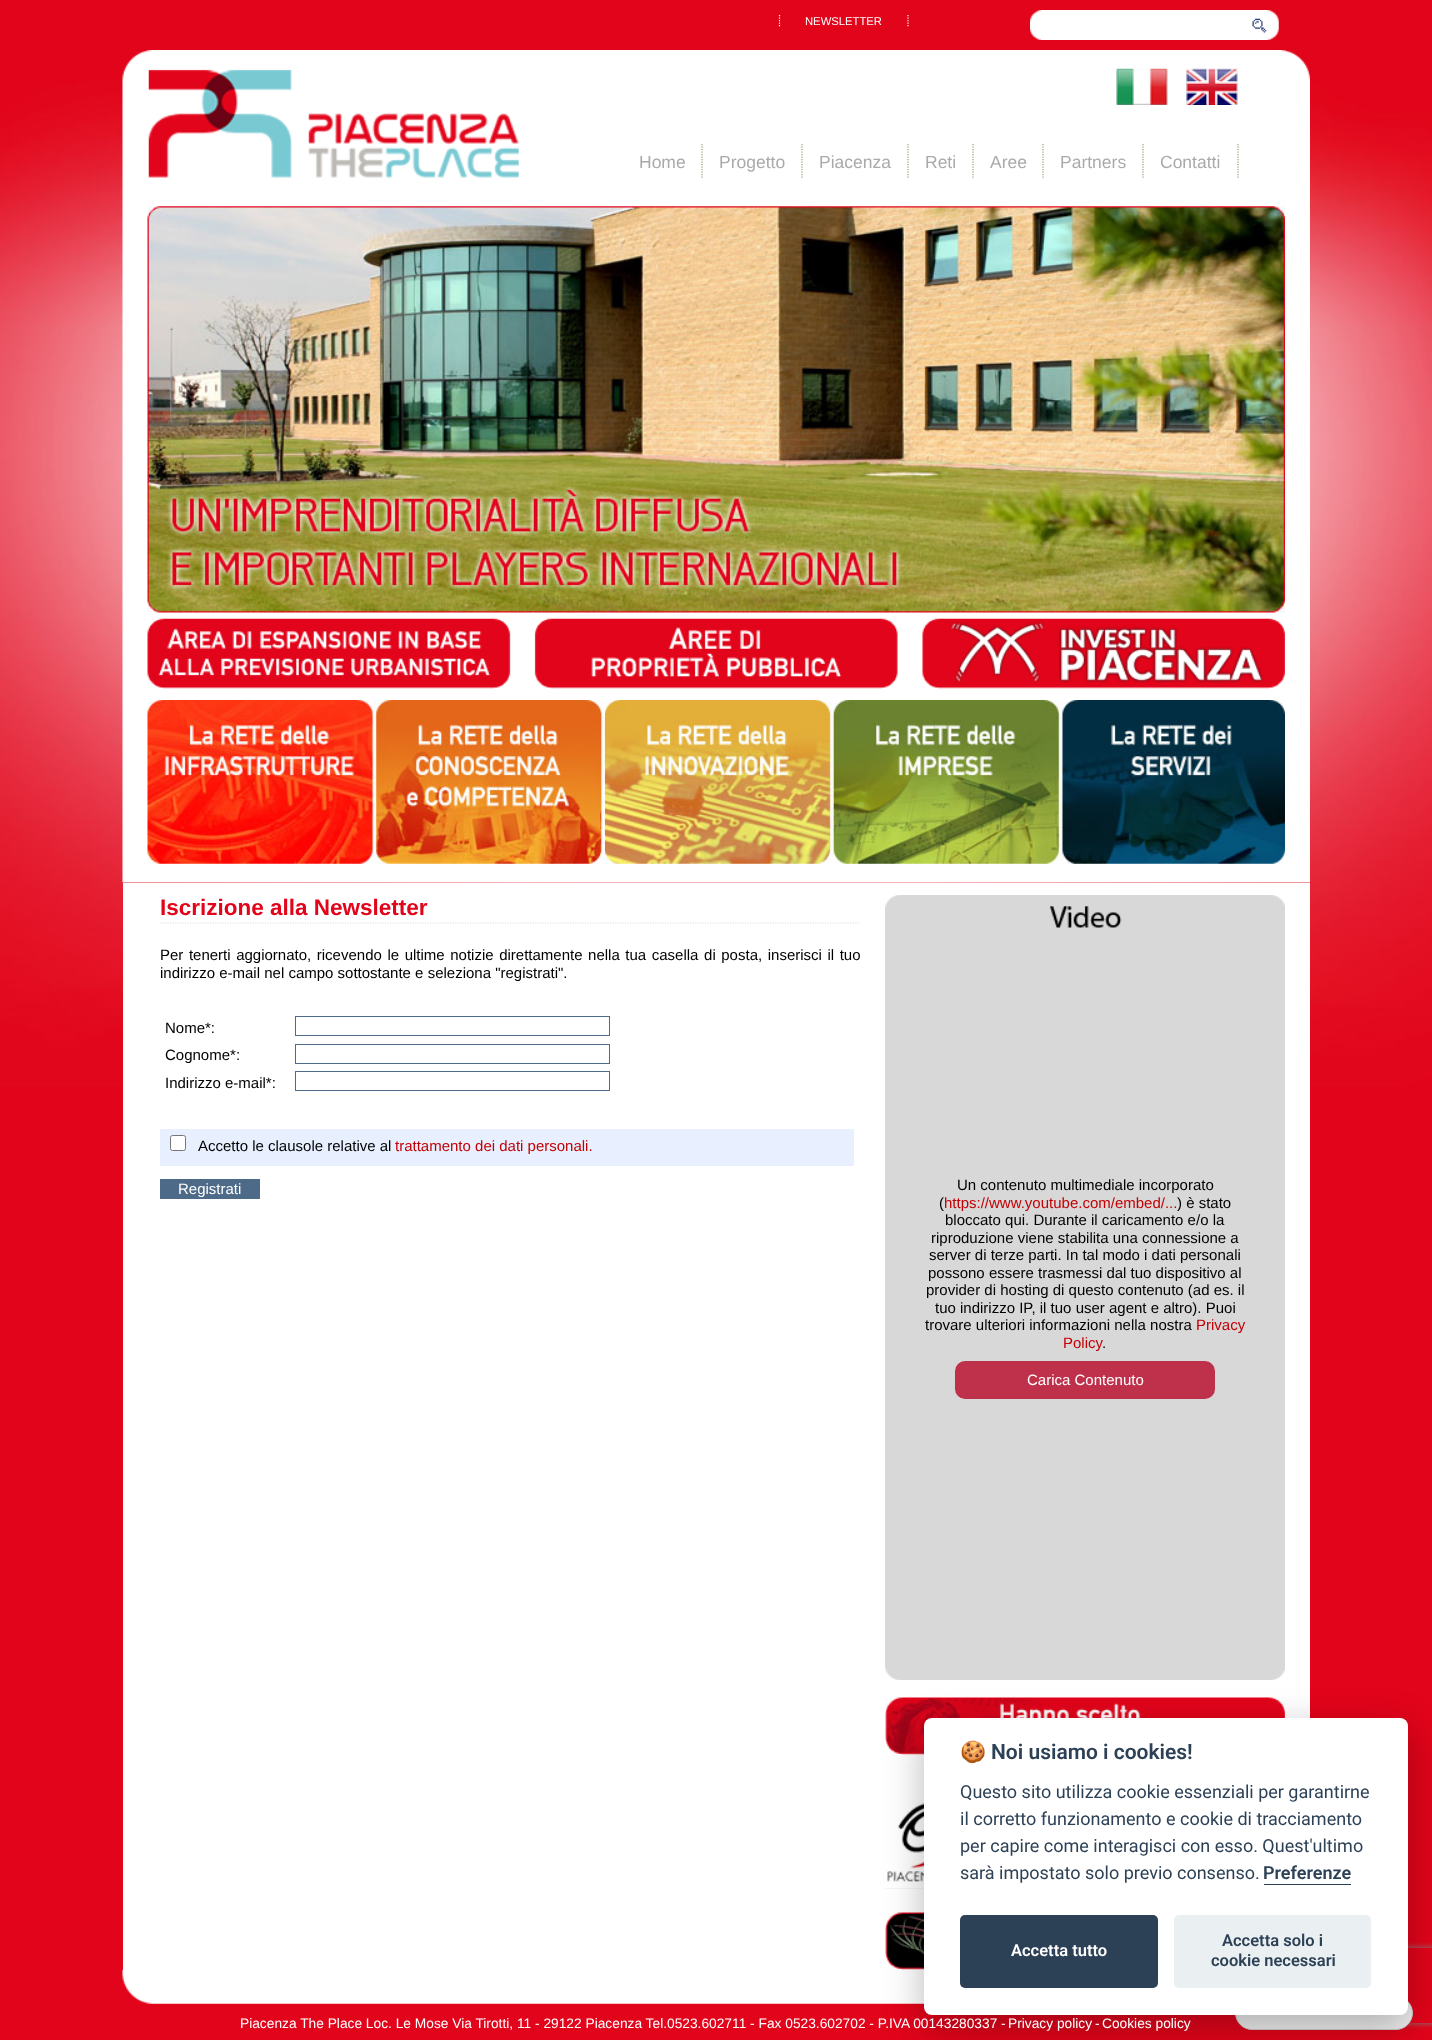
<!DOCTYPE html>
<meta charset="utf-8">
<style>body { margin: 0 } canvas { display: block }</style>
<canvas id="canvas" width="1432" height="2040"></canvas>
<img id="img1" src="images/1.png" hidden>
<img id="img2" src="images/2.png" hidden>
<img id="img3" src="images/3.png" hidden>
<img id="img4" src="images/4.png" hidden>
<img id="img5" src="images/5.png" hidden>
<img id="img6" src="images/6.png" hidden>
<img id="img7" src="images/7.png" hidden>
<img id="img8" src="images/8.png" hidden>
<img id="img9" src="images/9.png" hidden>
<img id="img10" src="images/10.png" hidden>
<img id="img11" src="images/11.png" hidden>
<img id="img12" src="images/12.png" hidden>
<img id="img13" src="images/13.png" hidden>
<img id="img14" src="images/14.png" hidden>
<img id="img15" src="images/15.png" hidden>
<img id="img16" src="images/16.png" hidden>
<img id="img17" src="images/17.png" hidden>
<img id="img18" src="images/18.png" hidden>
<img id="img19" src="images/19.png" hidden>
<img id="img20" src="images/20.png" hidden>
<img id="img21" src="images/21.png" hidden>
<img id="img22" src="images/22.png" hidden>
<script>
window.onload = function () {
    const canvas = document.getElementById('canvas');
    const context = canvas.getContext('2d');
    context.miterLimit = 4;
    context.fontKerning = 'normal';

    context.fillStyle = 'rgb(226, 4, 26)';
    context.fillRect(0, 0, 1432, 2040);
    context.drawImage(document.getElementById('img1'), 0, 78, 1432, 1008);
    context.drawImage(document.getElementById('img2'), 122, 50, 1188, 833);
    context.beginPath();
    context.moveTo(908, 15);
    context.lineTo(908, 27.5);
    context.strokeStyle = 'rgb(255, 255, 255)';
    context.lineWidth = 1.2;
    context.setLineDash([1.25, 1.25]);
    context.stroke();
    context.beginPath();
    context.moveTo(779.5, 15);
    context.lineTo(779.5, 27.5);
    context.stroke();
    context.drawImage(document.getElementById('img3'), 1030, 10, 249, 30);
    context.drawImage(document.getElementById('img4'), 1252, 18, 15, 15);
    context.drawImage(document.getElementById('img5'), 148, 69, 371, 109);
    context.drawImage(document.getElementById('img6'), 147, 206, 1138, 407);
    context.drawImage(document.getElementById('img7'), 147, 618, 364, 71);
    context.drawImage(document.getElementById('img8'), 534, 618, 364, 71);
    context.drawImage(document.getElementById('img9'), 922, 618, 363, 71);
    context.drawImage(document.getElementById('img10'), 147, 700, 230, 164);
    context.drawImage(document.getElementById('img11'), 376, 700, 229, 164);
    context.drawImage(document.getElementById('img12'), 605, 700, 229, 164);
    context.drawImage(document.getElementById('img13'), 833, 700, 230, 164);
    context.drawImage(document.getElementById('img14'), 1062, 700, 223, 164);
    context.drawImage(document.getElementById('img15'), 1116, 68, 52, 37);
    context.drawImage(document.getElementById('img16'), 1186, 68, 52, 37);
    context.beginPath();
    context.moveTo(702, 144);
    context.lineTo(702, 179);
    context.strokeStyle = 'rgb(163, 153, 126)';
    context.stroke();
    context.beginPath();
    context.moveTo(802, 144);
    context.lineTo(802, 179);
    context.stroke();
    context.beginPath();
    context.moveTo(908, 144);
    context.lineTo(908, 179);
    context.stroke();
    context.beginPath();
    context.moveTo(973, 144);
    context.lineTo(973, 179);
    context.stroke();
    context.beginPath();
    context.moveTo(1043, 144);
    context.lineTo(1043, 179);
    context.stroke();
    context.beginPath();
    context.moveTo(1143, 144);
    context.lineTo(1143, 179);
    context.stroke();
    context.beginPath();
    context.moveTo(1238, 144);
    context.lineTo(1238, 179);
    context.stroke();
    context.fillStyle = 'rgb(255, 255, 255)';
    context.fillRect(123, 883, 1187, 1087);
    context.beginPath();
    context.moveTo(160, 923);
    context.lineTo(860, 923);
    context.strokeStyle = 'rgb(221, 221, 221)';
    context.stroke();
    context.strokeStyle = 'rgb(77, 107, 136)';
    context.lineWidth = 1;
    context.setLineDash([]);
    context.strokeRect(295.5, 1016.5, 314, 19);
    context.strokeRect(295.5, 1044.5, 314, 19);
    context.strokeRect(295.5, 1071.5, 314, 19);
    context.fillStyle = 'rgb(232, 240, 255)';
    context.fillRect(160, 1129, 694, 37);
    context.fillStyle = 'rgb(255, 255, 255)';
    context.beginPath();
    context.roundRect(170.5, 1135.5, 15, 15, 2);
    context.fill();
    context.strokeStyle = 'rgb(118, 118, 118)';
    context.stroke();
    context.fillStyle = 'rgb(77, 107, 136)';
    context.fillRect(160, 1179, 100, 20);
    context.fillStyle = 'rgb(216, 216, 216)';
    context.fillRect(885, 928, 400, 961);
    context.drawImage(document.getElementById('img17'), 885, 895, 400, 33);
    context.fillStyle = 'rgb(191, 48, 74)';
    context.beginPath();
    context.roundRect(955, 1361, 260, 38, 10);
    context.fill();
    context.drawImage(document.getElementById('img18'), 885, 1667, 400, 13);
    context.fillStyle = 'rgb(255, 255, 255)';
    context.fillRect(885, 1680, 400, 18);
    context.drawImage(document.getElementById('img19'), 885, 1697, 400, 58);
    context.drawImage(document.getElementById('img20'), 885, 1755, 39, 134);
    context.drawImage(document.getElementById('img21'), 885, 1889, 39, 81);
    context.drawImage(document.getElementById('img22'), 122, 1970, 802, 34);
    context.save();
    context.beginPath();
    context.moveTo(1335, 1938);
    context.lineTo(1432, 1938);
    context.lineTo(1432, 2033);
    context.lineTo(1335, 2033);
    context.closePath();
    context.moveTo(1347.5, 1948);
    context.lineTo(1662.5, 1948);
    context.bezierCurveTo(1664, 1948, 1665, 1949, 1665, 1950.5);
    context.lineTo(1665, 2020.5);
    context.bezierCurveTo(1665, 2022, 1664, 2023, 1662.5, 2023);
    context.lineTo(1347.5, 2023);
    context.bezierCurveTo(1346, 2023, 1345, 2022, 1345, 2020.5);
    context.lineTo(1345, 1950.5);
    context.bezierCurveTo(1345, 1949, 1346, 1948, 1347.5, 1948);
    context.closePath();
    context.clip('evenodd');
    context.fillStyle = 'rgb(128, 128, 128)';
    context.filter = 'blur(3px)';
    context.beginPath();
    context.roundRect(1345, 1948, 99, 75, 2.5);
    context.fill();
    context.filter = 'none';
    context.restore();
    context.fillStyle = 'rgb(239, 239, 239)';
    context.beginPath();
    context.roundRect(1235.5, 1996.5, 177, 33, 16.5);
    context.fill();
    context.strokeStyle = 'rgb(204, 204, 204)';
    context.stroke();
    context.fillStyle = 'rgba(2, 2, 3, 0.28)';
    context.filter = 'blur(19px)';
    context.beginPath();
    context.roundRect(924, 1730, 484, 298, 8);
    context.fill();
    context.filter = 'none';
    context.fillStyle = 'rgb(255, 255, 255)';
    context.beginPath();
    context.roundRect(924, 1718, 484, 297, 8);
    context.fill();
    context.fillStyle = 'rgb(45, 65, 86)';
    context.fillRect(1264, 1884, 87, 1);
    context.beginPath();
    context.roundRect(960, 1915, 198, 73, 5);
    context.fill();
    context.fillStyle = 'rgb(234, 239, 242)';
    context.beginPath();
    context.roundRect(1174, 1915, 197, 73, 5);
    context.fill();
    context.font = '11.25px Liberation Sans';
    context.fillStyle = 'rgb(255, 255, 255)';
    context.fillText('NEWSLETTER', 805, 25);
    context.font = '17.5px Liberation Sans';
    context.fillStyle = 'rgb(170, 170, 170)';
    context.fillText('Home', 639, 168);
    context.fillText('Progetto', 719, 168);
    context.fillText('Piacenza', 819, 168);
    context.fillText('Reti', 925, 168);
    context.fillText('Aree', 990, 168);
    context.fillText('Partners', 1060, 168);
    context.fillText('Contatti', 1160, 168);
    context.font = 'bold 22.5px Liberation Sans';
    context.fillStyle = 'rgb(226, 4, 26)';
    context.fillText('Iscrizione alla Newsletter', 160, 915);
    context.wordSpacing = '1.4px';
    context.font = '15px Liberation Sans';
    context.fillStyle = 'rgb(0, 0, 0)';
    context.fillText('Per tenerti aggiornato, ricevendo le ultime notizie direttamente nella tua casella di posta, inserisci il tuo', 160, 960);
    context.wordSpacing = '0px';
    context.fillText('indirizzo e-mail nel campo sottostante e seleziona "registrati".', 160, 978);
    context.fillText('Nome*:', 165, 1033);
    context.fillText('Cognome*:', 165, 1060);
    context.fillText('Indirizzo e-mail*:', 165, 1088);
    context.fillText('Accetto le clausole relative al', 198, 1151);
    context.fillStyle = 'rgb(195, 1, 4)';
    context.fillText('trattamento dei dati personali.', 395, 1151);
    context.fillStyle = 'rgb(255, 255, 255)';
    context.fillText('Registrati', 178, 1194);
    context.fillStyle = 'rgb(0, 0, 0)';
    context.fillText('Un contenuto multimediale incorporato', 957, 1190);
    context.fillText('(', 939, 1208);
    context.fillStyle = 'rgb(195, 1, 4)';
    context.fillText('https://www.youtube.com/embed/...', 944, 1208);
    context.fillStyle = 'rgb(0, 0, 0)';
    context.fillText(') è stato', 1177, 1208);
    context.fillText('bloccato qui. Durante il caricamento e/o la', 945, 1225);
    context.fillText('riproduzione viene stabilita una connessione a', 931, 1243);
    context.fillText('server di terze parti. In tal modo i dati personali', 929, 1260);
    context.fillText('possono essere trasmessi dal tuo dispositivo al', 928, 1278);
    context.fillText('provider di hosting di questo contenuto (ad es. il', 926, 1295);
    context.fillText('tuo indirizzo IP, il tuo user agent e altro). Puoi', 935, 1313);
    context.fillText('trovare ulteriori informazioni nella nostra', 925, 1330);
    context.fillStyle = 'rgb(195, 1, 4)';
    context.fillText('Privacy', 1196, 1330);
    context.fillText('Policy', 1063, 1348);
    context.fillStyle = 'rgb(0, 0, 0)';
    context.fillText('.', 1102, 1348);
    context.fillStyle = 'rgb(255, 255, 255)';
    context.fillText('Carica Contenuto', 1027, 1385);
    context.font = '13.75px Liberation Sans';
    context.fillText('Piacenza The Place Loc. Le Mose Via Tirotti, 11 - 29122 Piacenza Tel.0523.602711 - Fax 0523.602702 - P.IVA 00143280337 -', 240, 2028);
    context.fillText('Privacy policy', 1008, 2028);
    context.fillText('-', 1095, 2028);
    context.fillText('Cookies policy', 1102, 2028);
    context.font = 'bold 21px Noto Color Emoji';
    context.fillStyle = 'rgb(45, 65, 86)';
    context.fillText('🍪', 960, 1759);
    context.font = '600 21px Roboto';
    context.fillText('Noi usiamo i cookies!', 991, 1759);
    context.font = '18px Roboto';
    context.fillText('Questo sito utilizza cookie essenziali per garantirne', 960, 1798);
    context.fillText('il corretto funzionamento e cookie di tracciamento', 960, 1825);
    context.fillText('per capire come interagisci con esso. Quest\'ultimo', 960, 1852);
    context.fillText('sarà impostato solo previo consenso.', 960, 1879);
    context.font = '600 18px Roboto';
    context.fillText('Preferenze', 1263, 1879);
    context.font = '600 16.5px Roboto';
    context.fillStyle = 'rgb(255, 255, 255)';
    context.fillText('Accetta tutto', 1011, 1956);
    context.fillStyle = 'rgb(45, 65, 86)';
    context.fillText('Accetta solo i', 1222, 1946);
    context.fillText('cookie necessari', 1211, 1966);
};
</script>
